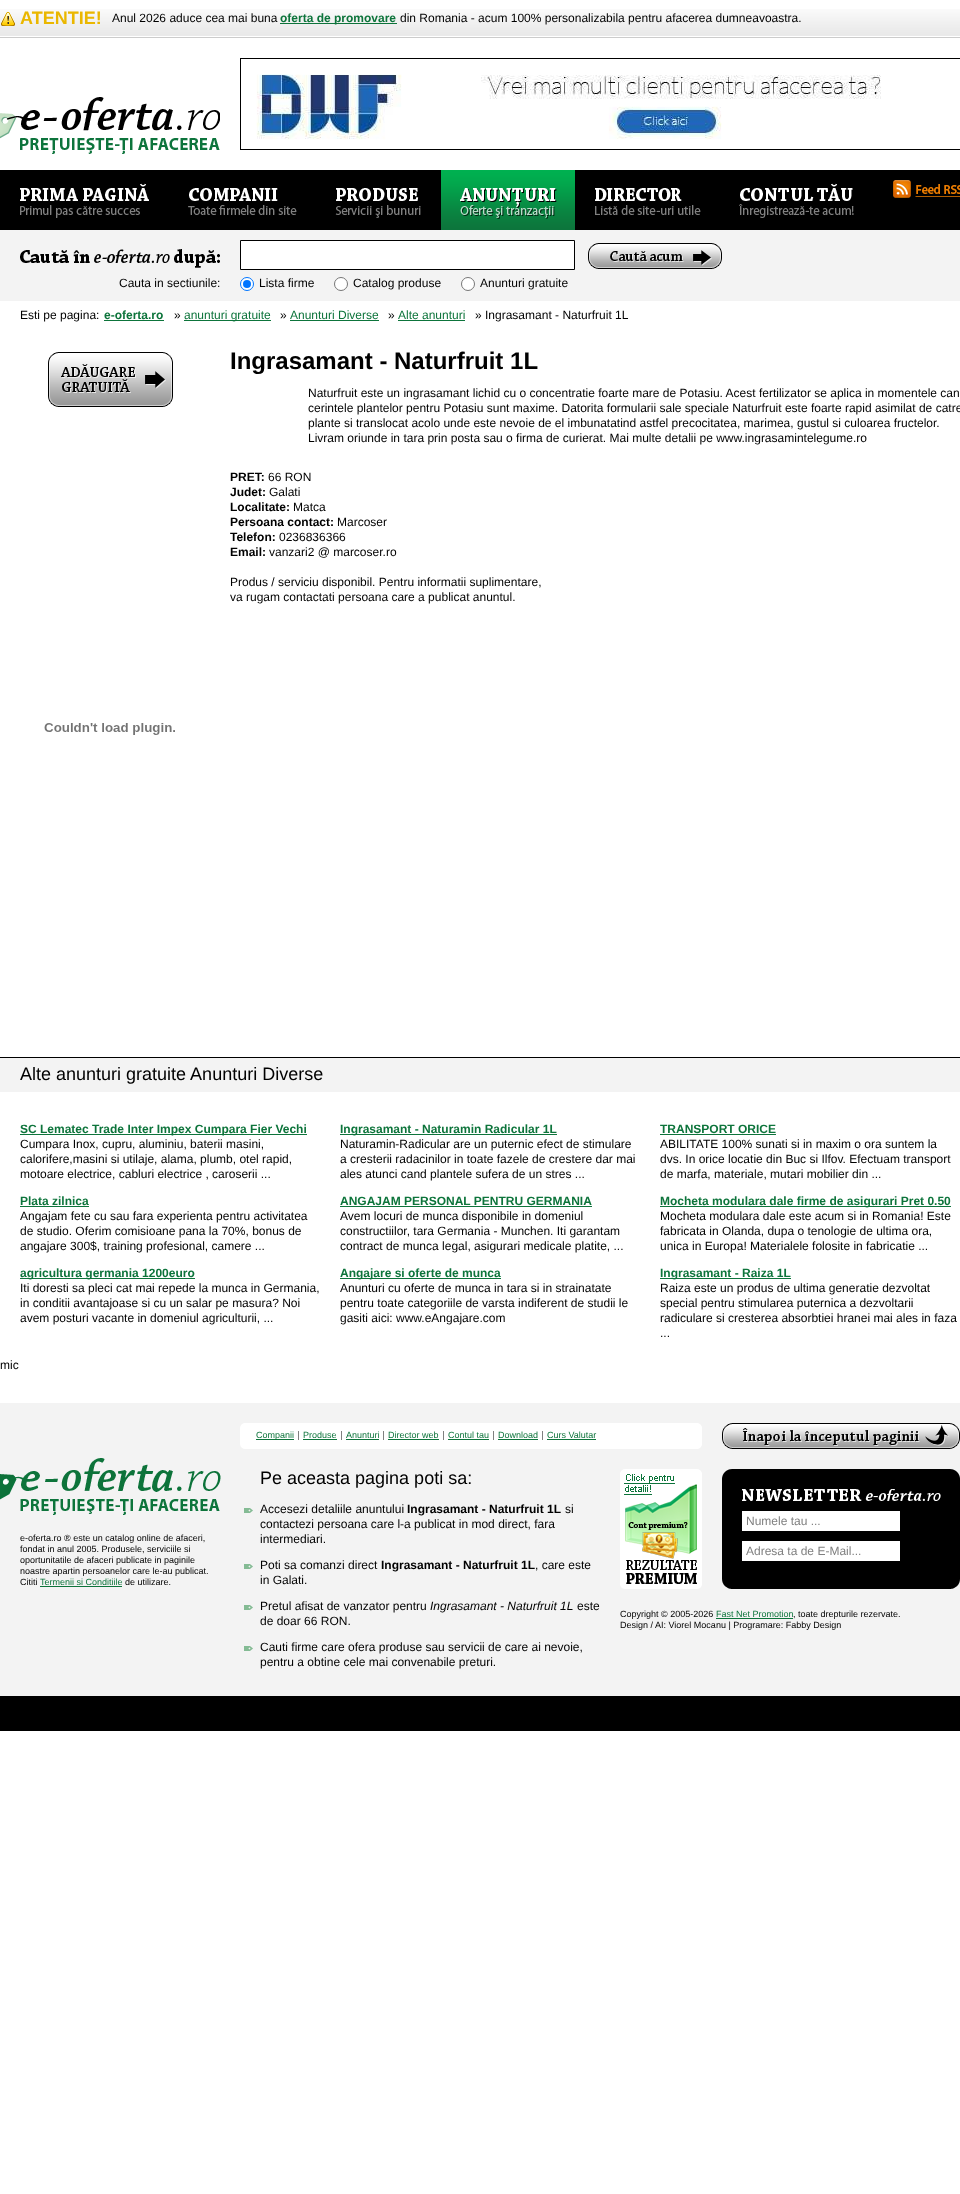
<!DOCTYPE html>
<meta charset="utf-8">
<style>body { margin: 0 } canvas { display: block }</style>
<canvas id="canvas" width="960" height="2194"></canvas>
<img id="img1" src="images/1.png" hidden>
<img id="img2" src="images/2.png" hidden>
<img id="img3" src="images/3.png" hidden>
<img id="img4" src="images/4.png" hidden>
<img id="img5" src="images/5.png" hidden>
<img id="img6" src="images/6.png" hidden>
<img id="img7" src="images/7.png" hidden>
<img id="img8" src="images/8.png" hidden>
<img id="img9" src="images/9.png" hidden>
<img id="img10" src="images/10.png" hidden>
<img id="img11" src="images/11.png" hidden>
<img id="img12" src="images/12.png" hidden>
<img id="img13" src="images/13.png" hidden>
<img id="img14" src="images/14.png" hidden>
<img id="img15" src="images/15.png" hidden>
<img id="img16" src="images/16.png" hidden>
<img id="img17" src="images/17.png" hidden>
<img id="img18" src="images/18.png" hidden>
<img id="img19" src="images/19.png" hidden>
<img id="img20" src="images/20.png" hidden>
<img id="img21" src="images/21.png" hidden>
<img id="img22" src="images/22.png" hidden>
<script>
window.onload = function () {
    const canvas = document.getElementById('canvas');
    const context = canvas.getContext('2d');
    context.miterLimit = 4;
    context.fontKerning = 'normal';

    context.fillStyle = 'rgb(255, 255, 255)';
    context.fillRect(0, 0, 960, 2194);
    context.drawImage(document.getElementById('img1'), 0, 9, 960, 29);
    context.drawImage(document.getElementById('img2'), 1, 12, 14, 14);
    context.fillStyle = 'rgb(13, 116, 59)';
    context.fillRect(280, 23, 117, 1);
    context.drawImage(document.getElementById('img3'), 0, 97, 220, 57);
    context.strokeStyle = 'rgb(0, 0, 0)';
    context.strokeRect(240.5, 58.5, 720, 91);
    context.drawImage(document.getElementById('img4'), 256, 74, 625, 66);
    context.fillStyle = 'rgb(0, 0, 0)';
    context.fillRect(0, 170, 960, 60);
    context.drawImage(document.getElementById('img5'), 20, 183, 129, 35);
    context.drawImage(document.getElementById('img6'), 188, 188, 109, 27);
    context.drawImage(document.getElementById('img7'), 335, 188, 86, 30);
    context.drawImage(document.getElementById('img8'), 441, 170, 134, 60);
    context.drawImage(document.getElementById('img9'), 595, 188, 106, 27);
    context.drawImage(document.getElementById('img10'), 739, 183, 115, 35);
    context.drawImage(document.getElementById('img11'), 893, 180, 67, 18);
    context.fillStyle = 'rgb(243, 243, 243)';
    context.fillRect(0, 230, 960, 71);
    context.drawImage(document.getElementById('img12'), 20, 249, 200, 19);
    context.fillStyle = 'rgb(255, 255, 255)';
    context.beginPath();
    context.rect(240.5, 240.5, 334, 29);
    context.fill();
    context.stroke();
    context.drawImage(document.getElementById('img13'), 588, 243, 134, 26);
    context.beginPath();
    context.arc(247, 284, 6.5, 0, 2 * Math.PI);
    context.fill();
    context.strokeStyle = 'rgb(0, 117, 255)';
    context.stroke();
    context.fillStyle = 'rgb(0, 117, 255)';
    context.beginPath();
    context.arc(247, 284, 4, 0, 2 * Math.PI);
    context.fill();
    context.fillStyle = 'rgb(255, 255, 255)';
    context.beginPath();
    context.arc(341, 284, 6.5, 0, 2 * Math.PI);
    context.fill();
    context.strokeStyle = 'rgb(118, 118, 118)';
    context.stroke();
    context.beginPath();
    context.arc(468, 284, 6.5, 0, 2 * Math.PI);
    context.fill();
    context.stroke();
    context.fillStyle = 'rgb(13, 116, 59)';
    context.fillRect(104, 320, 60, 1);
    context.fillRect(184, 320, 87, 1);
    context.fillRect(290, 320, 89, 1);
    context.fillRect(398, 320, 67, 1);
    context.drawImage(document.getElementById('img14'), 48, 352, 125, 55);
    context.drawImage(document.getElementById('img15'), 44, 723, 131, 12);
    context.fillStyle = 'rgb(243, 243, 243)';
    context.fillRect(0, 1058, 960, 34);
    context.fillStyle = 'rgb(0, 0, 0)';
    context.fillRect(0, 1057, 960, 1);
    context.fillStyle = 'rgb(13, 116, 59)';
    context.fillRect(20, 1134, 287, 1);
    context.fillRect(340, 1134, 217, 1);
    context.fillRect(660, 1134, 116, 1);
    context.fillRect(20, 1206, 69, 1);
    context.fillRect(340, 1206, 252, 1);
    context.fillRect(660, 1206, 291, 1);
    context.fillRect(20, 1278, 175, 1);
    context.fillRect(340, 1278, 161, 1);
    context.fillRect(660, 1278, 131, 1);
    context.fillStyle = 'rgb(243, 243, 243)';
    context.fillRect(0, 1403, 960, 293);
    context.drawImage(document.getElementById('img16'), 0, 1458, 221, 57);
    context.fillStyle = 'rgb(13, 116, 59)';
    context.fillRect(40, 1586, 82, 1);
    context.drawImage(document.getElementById('img17'), 240, 1423, 462, 26);
    context.fillStyle = 'rgb(128, 128, 128)';
    context.fillRect(298, 1431, 1, 9);
    context.fillStyle = 'rgb(13, 116, 59)';
    context.fillRect(256, 1439, 38, 1);
    context.fillStyle = 'rgb(128, 128, 128)';
    context.fillRect(341, 1431, 1, 9);
    context.fillStyle = 'rgb(13, 116, 59)';
    context.fillRect(303, 1439, 34, 1);
    context.fillStyle = 'rgb(128, 128, 128)';
    context.fillRect(383, 1431, 1, 9);
    context.fillStyle = 'rgb(13, 116, 59)';
    context.fillRect(346, 1439, 33, 1);
    context.fillStyle = 'rgb(128, 128, 128)';
    context.fillRect(443, 1431, 1, 9);
    context.fillStyle = 'rgb(13, 116, 59)';
    context.fillRect(388, 1439, 51, 1);
    context.fillStyle = 'rgb(128, 128, 128)';
    context.fillRect(493, 1431, 1, 9);
    context.fillStyle = 'rgb(13, 116, 59)';
    context.fillRect(448, 1439, 41, 1);
    context.fillStyle = 'rgb(128, 128, 128)';
    context.fillRect(542, 1431, 1, 9);
    context.fillStyle = 'rgb(13, 116, 59)';
    context.fillRect(498, 1439, 40, 1);
    context.fillRect(547, 1439, 49, 1);
    context.drawImage(document.getElementById('img18'), 722, 1423, 238, 26);
    context.drawImage(document.getElementById('img19'), 244, 1508, 9, 5);
    context.drawImage(document.getElementById('img19'), 244, 1564, 9, 5);
    context.drawImage(document.getElementById('img19'), 244, 1605, 9, 5);
    context.drawImage(document.getElementById('img19'), 244, 1646, 9, 5);
    context.drawImage(document.getElementById('img20'), 620, 1469, 82, 120);
    context.drawImage(document.getElementById('img21'), 722, 1469, 238, 120);
    context.drawImage(document.getElementById('img22'), 742, 1489, 199, 12);
    context.fillStyle = 'rgb(255, 255, 255)';
    context.fillRect(742, 1511, 158, 20);
    context.fillRect(742, 1541, 158, 20);
    context.fillStyle = 'rgb(13, 116, 59)';
    context.fillRect(716, 1618, 77, 1);
    context.fillStyle = 'rgb(0, 0, 0)';
    context.fillRect(0, 1696, 960, 35);
    context.font = 'bold 18px Liberation Sans';
    context.fillStyle = 'rgb(234, 183, 0)';
    context.fillText('ATENTIE!', 20, 24);
    context.font = '12px Liberation Sans';
    context.fillStyle = 'rgb(0, 0, 0)';
    context.fillText('Anul 2026 aduce cea mai buna', 112, 22);
    context.font = 'bold 12px Liberation Sans';
    context.fillStyle = 'rgb(13, 116, 59)';
    context.fillText('oferta de promovare', 280, 22);
    context.font = '12px Liberation Sans';
    context.fillStyle = 'rgb(0, 0, 0)';
    context.fillText('din Romania - acum 100% personalizabila pentru afacerea dumneavoastra.', 400, 22);
    context.fillText('Cauta in sectiunile:', 119, 287);
    context.fillText('Lista firme', 259, 287);
    context.fillText('Catalog produse', 353, 287);
    context.fillText('Anunturi gratuite', 480, 287);
    context.fillText('Esti pe pagina:', 20, 319);
    context.font = 'bold 12px Liberation Sans';
    context.fillStyle = 'rgb(13, 116, 59)';
    context.fillText('e-oferta.ro', 104, 319);
    context.font = '12px Liberation Sans';
    context.fillStyle = 'rgb(0, 0, 0)';
    context.fillText('»', 174, 319);
    context.fillStyle = 'rgb(13, 116, 59)';
    context.fillText('anunturi gratuite', 184, 319);
    context.fillStyle = 'rgb(0, 0, 0)';
    context.fillText('»', 280, 319);
    context.fillStyle = 'rgb(13, 116, 59)';
    context.fillText('Anunturi Diverse', 290, 319);
    context.fillStyle = 'rgb(0, 0, 0)';
    context.fillText('»', 388, 319);
    context.fillStyle = 'rgb(13, 116, 59)';
    context.fillText('Alte anunturi', 398, 319);
    context.fillStyle = 'rgb(0, 0, 0)';
    context.fillText('» Ingrasamant - Naturfruit 1L', 475, 319);
    context.font = 'bold 24px Liberation Sans';
    context.fillText('Ingrasamant - Naturfruit 1L', 230, 369);
    context.font = '12px Liberation Sans';
    context.fillText('Naturfruit este un ingrasamant lichid cu o concentratie foarte mare de Potasiu. Acest fertilizator se aplica in momentele can', 308, 397);
    context.fillText('cerintele plantelor pentru Potasiu sunt maxime. Datorita formularii sale speciale Naturfruit este foarte rapid asimilat de catre', 308, 412);
    context.fillText('plante si translocat acolo unde este nevoie de el imbunatatind astfel precocitatea, marimea, gustul si culoarea fructelor.', 308, 427);
    context.fillText('Livram oriunde in tara prin posta sau o firma de curierat. Mai multe detalii pe www.ingrasamintelegume.ro', 308, 442);
    context.font = 'bold 12px Liberation Sans';
    context.fillText('PRET:', 230, 481);
    context.font = '12px Liberation Sans';
    context.fillText('66 RON', 268, 481);
    context.font = 'bold 12px Liberation Sans';
    context.fillText('Judet:', 230, 496);
    context.font = '12px Liberation Sans';
    context.fillText('Galati', 269, 496);
    context.font = 'bold 12px Liberation Sans';
    context.fillText('Localitate:', 230, 511);
    context.font = '12px Liberation Sans';
    context.fillText('Matca', 293, 511);
    context.font = 'bold 12px Liberation Sans';
    context.fillText('Persoana contact:', 230, 526);
    context.font = '12px Liberation Sans';
    context.fillText('Marcoser', 337, 526);
    context.font = 'bold 12px Liberation Sans';
    context.fillText('Telefon:', 230, 541);
    context.font = '12px Liberation Sans';
    context.fillText('0236836366', 279, 541);
    context.font = 'bold 12px Liberation Sans';
    context.fillText('Email:', 230, 556);
    context.font = '12px Liberation Sans';
    context.fillText('vanzari2 @ marcoser.ro', 269, 556);
    context.fillText('Produs / serviciu disponibil. Pentru informatii suplimentare,', 230, 586);
    context.fillText('va rugam contactati persoana care a publicat anuntul.', 230, 601);
    context.font = '18px Liberation Sans';
    context.fillText('Alte anunturi gratuite Anunturi Diverse', 20, 1080);
    context.font = 'bold 12px Liberation Sans';
    context.fillStyle = 'rgb(13, 116, 59)';
    context.fillText('SC Lematec Trade Inter Impex Cumpara Fier Vechi', 20, 1133);
    context.font = '12px Liberation Sans';
    context.fillStyle = 'rgb(0, 0, 0)';
    context.fillText('Cumpara Inox, cupru, aluminiu, baterii masini,', 20, 1148);
    context.fillText('calorifere,masini si utilaje, alama, plumb, otel rapid,', 20, 1163);
    context.fillText('motoare electrice, cabluri electrice , caroserii ...', 20, 1178);
    context.font = 'bold 12px Liberation Sans';
    context.fillStyle = 'rgb(13, 116, 59)';
    context.fillText('Ingrasamant - Naturamin Radicular 1L', 340, 1133);
    context.font = '12px Liberation Sans';
    context.fillStyle = 'rgb(0, 0, 0)';
    context.fillText('Naturamin-Radicular are un puternic efect de stimulare', 340, 1148);
    context.fillText('a cresterii radacinilor in toate fazele de crestere dar mai', 340, 1163);
    context.fillText('ales atunci cand plantele sufera de un stres ...', 340, 1178);
    context.font = 'bold 12px Liberation Sans';
    context.fillStyle = 'rgb(13, 116, 59)';
    context.fillText('TRANSPORT ORICE', 660, 1133);
    context.font = '12px Liberation Sans';
    context.fillStyle = 'rgb(0, 0, 0)';
    context.fillText('ABILITATE 100% sunati si in maxim o ora suntem la', 660, 1148);
    context.fillText('dvs. In orice locatie din Buc si Ilfov. Efectuam transport', 660, 1163);
    context.fillText('de marfa, materiale, mutari mobilier din ...', 660, 1178);
    context.font = 'bold 12px Liberation Sans';
    context.fillStyle = 'rgb(13, 116, 59)';
    context.fillText('Plata zilnica', 20, 1205);
    context.font = '12px Liberation Sans';
    context.fillStyle = 'rgb(0, 0, 0)';
    context.fillText('Angajam fete cu sau fara experienta pentru activitatea', 20, 1220);
    context.fillText('de studio. Oferim comisioane pana la 70%, bonus de', 20, 1235);
    context.fillText('angajare 300$, training profesional, camere ...', 20, 1250);
    context.font = 'bold 12px Liberation Sans';
    context.fillStyle = 'rgb(13, 116, 59)';
    context.fillText('ANGAJAM PERSONAL PENTRU GERMANIA', 340, 1205);
    context.font = '12px Liberation Sans';
    context.fillStyle = 'rgb(0, 0, 0)';
    context.fillText('Avem locuri de munca disponibile in domeniul', 340, 1220);
    context.fillText('constructiilor, tara Germania - Munchen. Iti garantam', 340, 1235);
    context.fillText('contract de munca legal, asigurari medicale platite, ...', 340, 1250);
    context.font = 'bold 12px Liberation Sans';
    context.fillStyle = 'rgb(13, 116, 59)';
    context.fillText('Mocheta modulara dale firme de asigurari Pret 0.50', 660, 1205);
    context.font = '12px Liberation Sans';
    context.fillStyle = 'rgb(0, 0, 0)';
    context.fillText('Mocheta modulara dale este acum si in Romania! Este', 660, 1220);
    context.fillText('fabricata in Olanda, dupa o tenologie de ultima ora,', 660, 1235);
    context.fillText('unica in Europa! Materialele folosite in fabricatie ...', 660, 1250);
    context.font = 'bold 12px Liberation Sans';
    context.fillStyle = 'rgb(13, 116, 59)';
    context.fillText('agricultura germania 1200euro', 20, 1277);
    context.font = '12px Liberation Sans';
    context.fillStyle = 'rgb(0, 0, 0)';
    context.fillText('Iti doresti sa pleci cat mai repede la munca in Germania,', 20, 1292);
    context.fillText('in conditii avantajoase si cu un salar pe masura? Noi', 20, 1307);
    context.fillText('avem posturi vacante in domeniul agriculturii, ...', 20, 1322);
    context.font = 'bold 12px Liberation Sans';
    context.fillStyle = 'rgb(13, 116, 59)';
    context.fillText('Angajare si oferte de munca', 340, 1277);
    context.font = '12px Liberation Sans';
    context.fillStyle = 'rgb(0, 0, 0)';
    context.fillText('Anunturi cu oferte de munca in tara si in strainatate', 340, 1292);
    context.fillText('pentru toate categoriile de varsta indiferent de studii le', 340, 1307);
    context.fillText('gasiti aici: www.eAngajare.com', 340, 1322);
    context.font = 'bold 12px Liberation Sans';
    context.fillStyle = 'rgb(13, 116, 59)';
    context.fillText('Ingrasamant - Raiza 1L', 660, 1277);
    context.font = '12px Liberation Sans';
    context.fillStyle = 'rgb(0, 0, 0)';
    context.fillText('Raiza este un produs de ultima generatie dezvoltat', 660, 1292);
    context.fillText('special pentru stimularea puternica a dezvoltarii', 660, 1307);
    context.fillText('radiculare si cresterea absorbtiei hranei mai ales in faza', 660, 1322);
    context.fillText('...', 660, 1337);
    context.fillText('mic', 0, 1369);
    context.font = '9px Liberation Sans';
    context.fillText('e-oferta.ro ® este un catalog online de afaceri,', 20, 1541);
    context.fillText('fondat in anul 2005. Produsele, serviciile si', 20, 1552);
    context.fillText('oportunitatile de afaceri publicate in paginile', 20, 1563);
    context.fillText('noastre apartin persoanelor care le-au publicat.', 20, 1574);
    context.fillText('Cititi', 20, 1585);
    context.fillStyle = 'rgb(13, 116, 59)';
    context.fillText('Termenii si Conditiile', 40, 1585);
    context.fillStyle = 'rgb(0, 0, 0)';
    context.fillText('de utilizare.', 125, 1585);
    context.fillStyle = 'rgb(13, 116, 59)';
    context.fillText('Companii', 256, 1438);
    context.fillText('Produse', 303, 1438);
    context.fillText('Anunturi', 346, 1438);
    context.fillText('Director web', 388, 1438);
    context.fillText('Contul tau', 448, 1438);
    context.fillText('Download', 498, 1438);
    context.fillText('Curs Valutar', 547, 1438);
    context.font = '18px Liberation Sans';
    context.fillStyle = 'rgb(0, 0, 0)';
    context.fillText('Pe aceasta pagina poti sa:', 260, 1484);
    context.font = '12px Liberation Sans';
    context.fillText('Accesezi detaliile anuntului', 260, 1513);
    context.font = 'bold 12px Liberation Sans';
    context.fillText('Ingrasamant - Naturfruit 1L', 407, 1513);
    context.font = '12px Liberation Sans';
    context.fillText('si', 565, 1513);
    context.fillText('contactezi persoana care l-a publicat in mod direct, fara', 260, 1528);
    context.fillText('intermediari.', 260, 1543);
    context.fillText('Poti sa comanzi direct', 260, 1569);
    context.font = 'bold 12px Liberation Sans';
    context.fillText('Ingrasamant - Naturfruit 1L', 381, 1569);
    context.font = '12px Liberation Sans';
    context.fillText(', care este', 535, 1569);
    context.fillText('in Galati.', 260, 1584);
    context.fillText('Pretul afisat de vanzator pentru', 260, 1610);
    context.font = 'italic 12px Liberation Sans';
    context.fillText('Ingrasamant - Naturfruit 1L', 430, 1610);
    context.font = '12px Liberation Sans';
    context.fillText('este', 577, 1610);
    context.fillText('de doar 66 RON.', 260, 1625);
    context.fillText('Cauti firme care ofera produse sau servicii de care ai nevoie,', 260, 1651);
    context.fillText('pentru a obtine cele mai convenabile preturi.', 260, 1666);
    context.fillStyle = 'rgb(128, 128, 128)';
    context.fillText('Numele tau ...', 746, 1525);
    context.fillText('Adresa ta de E-Mail...', 746, 1555);
    context.font = '9px Liberation Sans';
    context.fillStyle = 'rgb(0, 0, 0)';
    context.fillText('Copyright © 2005-2026', 620, 1617);
    context.fillStyle = 'rgb(13, 116, 59)';
    context.fillText('Fast Net Promotion', 716, 1617);
    context.fillStyle = 'rgb(0, 0, 0)';
    context.fillText(', toate drepturile rezervate.', 793, 1617);
    context.fillText('Design / AI: Viorel Mocanu | Programare: Fabby Design', 620, 1628);
};
</script>
